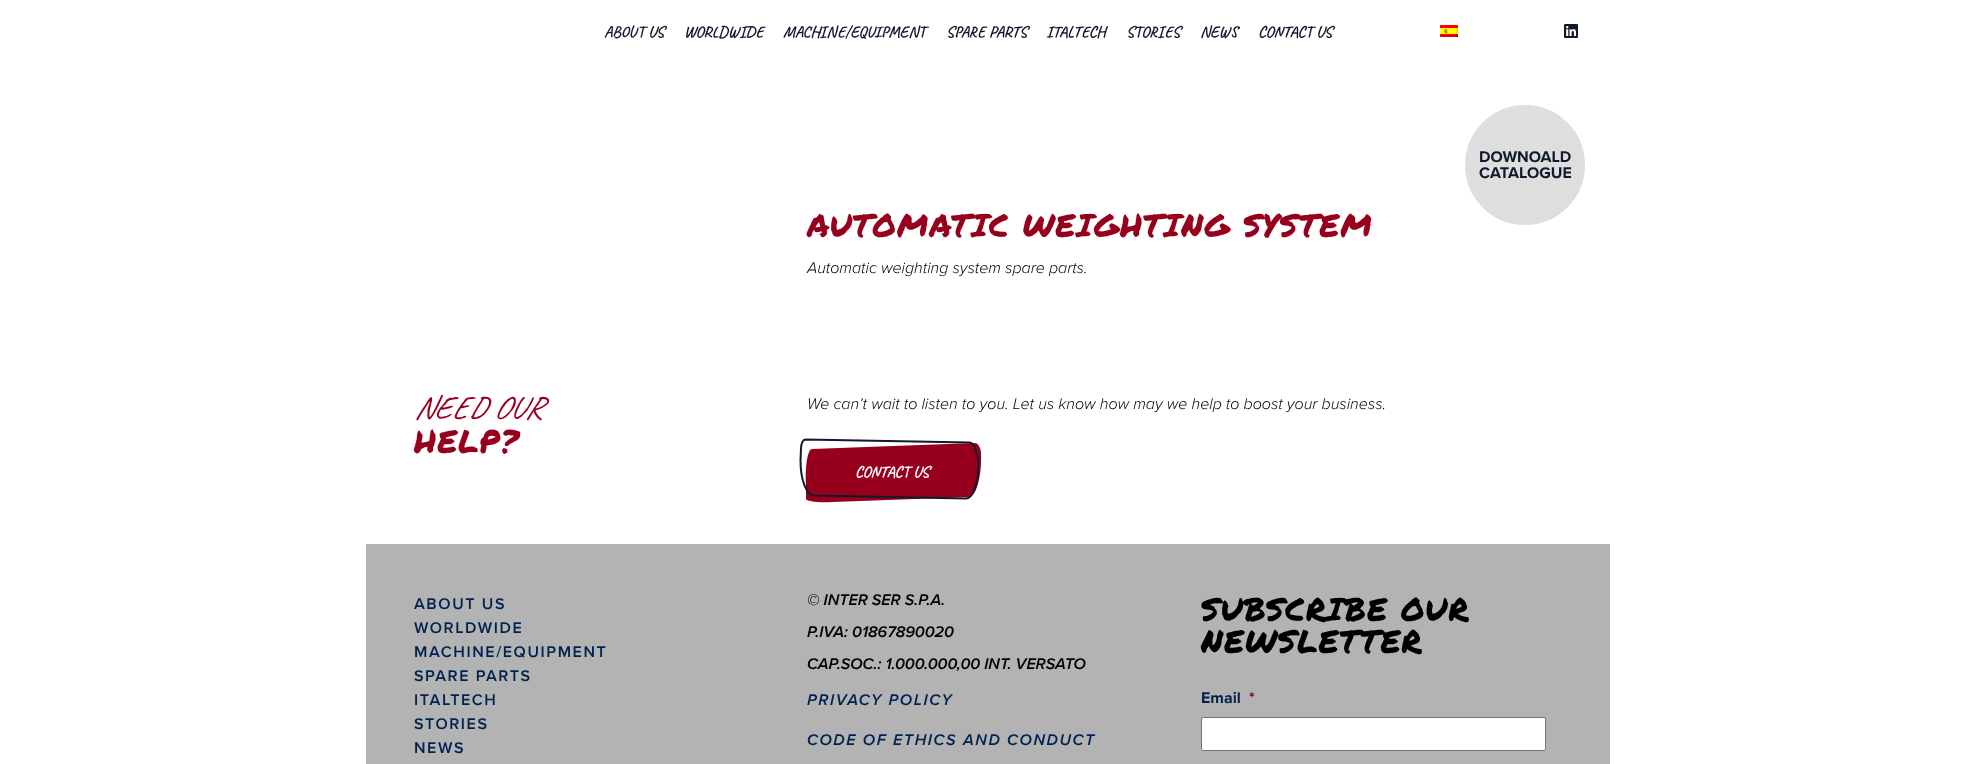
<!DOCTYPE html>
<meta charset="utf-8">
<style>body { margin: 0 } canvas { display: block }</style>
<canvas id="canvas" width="1976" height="764"></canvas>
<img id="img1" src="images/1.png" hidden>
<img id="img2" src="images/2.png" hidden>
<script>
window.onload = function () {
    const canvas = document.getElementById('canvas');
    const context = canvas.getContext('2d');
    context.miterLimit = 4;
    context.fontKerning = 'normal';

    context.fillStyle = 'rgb(255, 255, 255)';
    context.fillRect(0, 0, 1976, 764);
    context.drawImage(document.getElementById('img1'), 1440, 25, 18, 12);
    context.drawImage(document.getElementById('img2'), 1564, 24, 14, 14);
    context.fillStyle = 'rgb(222, 222, 222)';
    context.beginPath();
    context.arc(1525, 165, 62.5, 0, 2 * Math.PI);
    context.fill();
    context.strokeStyle = 'rgb(255, 255, 255)';
    context.lineWidth = 5;
    context.stroke();
    context.fillStyle = 'rgb(150, 0, 29)';
    context.beginPath();
    context.moveTo(812, 449);
    context.lineTo(975, 443);
    context.bezierCurveTo(978, 443, 981, 448, 981, 453);
    context.bezierCurveTo(982, 477, 976, 497, 969, 497);
    context.lineTo(833, 502);
    context.bezierCurveTo(818, 503, 806, 501, 806, 499);
    context.lineTo(806, 484);
    context.bezierCurveTo(805, 465, 808, 449, 812, 449);
    context.closePath();
    context.fill();
    context.fillStyle = 'rgb(179, 179, 179)';
    context.fillRect(366, 544, 1244, 220);
    context.fillStyle = 'rgb(255, 255, 255)';
    context.beginPath();
    context.roundRect(1201.5, 717.5, 344, 33, 1.5);
    context.fill();
    context.strokeStyle = 'rgb(118, 118, 118)';
    context.lineWidth = 1;
    context.stroke();
    context.font = 'bold 16px Caveat';
    context.fillStyle = 'rgb(17, 26, 45)';
    context.fillText('ABOUT US', 604, 37);
    context.fillText('WORLDWIDE', 684, 37);
    context.fillText('MACHINE/EQUIPMENT', 783, 37);
    context.fillText('SPARE PARTS', 946, 37);
    context.fillText('ITALTECH', 1046, 37);
    context.fillText('STORIES', 1126, 37);
    context.fillText('NEWS', 1200, 37);
    context.fillText('CONTACT US', 1258, 37);
    context.font = 'bold 16px Proxima Nova';
    context.fillText('DOWNOALD', 1479, 162);
    context.fillText('CATALOGUE', 1479, 178);
    context.letterSpacing = '1px';
    context.font = '32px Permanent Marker';
    context.fillStyle = 'rgb(150, 0, 29)';
    context.fillText('AUTOMATIC WEIGHTING SYSTEM', 807, 237);
    context.letterSpacing = '0px';
    context.font = 'italic 300 16px Proxima Nova';
    context.fillStyle = 'rgb(0, 0, 0)';
    context.fillText('Automatic weighting system spare parts.', 807, 273);
    context.font = 'italic 32px Caveat';
    context.fillStyle = 'rgb(150, 0, 29)';
    context.fillText('NEED OUR', 414, 418);
    context.letterSpacing = '1px';
    context.font = '32px Permanent Marker';
    context.fillText('HELP?', 414, 453);
    context.letterSpacing = '0px';
    context.font = 'italic 300 16px Proxima Nova';
    context.fillStyle = 'rgb(0, 0, 0)';
    context.fillText('We can’t wait to listen to you. Let us know how may we help to boost your business.', 807, 409);
    context.font = 'bold 16px Caveat';
    context.fillStyle = 'rgb(255, 255, 255)';
    context.fillText('CONTACT US', 855, 477);
    context.beginPath();
    context.moveTo(805.5, 439.5);
    context.lineTo(969.5, 442.5);
    context.bezierCurveTo(974.5, 442.5, 978.5, 453.5, 978.5, 467);
    context.bezierCurveTo(978, 484.5, 972.5, 498.5, 966, 498.5);
    context.lineTo(814.5, 495.5);
    context.bezierCurveTo(806.5, 495.5, 800.5, 480, 800.5, 460.5);
    context.lineTo(801, 448.5);
    context.bezierCurveTo(801, 443.5, 803, 439.5, 805.5, 439.5);
    context.closePath();
    context.strokeStyle = 'rgb(17, 26, 45)';
    context.lineWidth = 2;
    context.stroke();
    context.letterSpacing = '1.6px';
    context.font = '600 16px Proxima Nova';
    context.fillStyle = 'rgb(0, 34, 80)';
    context.fillText('ABOUT US', 414, 609);
    context.fillText('WORLDWIDE', 414, 633);
    context.fillText('MACHINE/EQUIPMENT', 414, 657);
    context.fillText('SPARE PARTS', 414, 681);
    context.fillText('ITALTECH', 414, 705);
    context.fillText('STORIES', 414, 729);
    context.fillText('NEWS', 414, 753);
    context.letterSpacing = '0px';
    context.font = 'italic 600 16px Proxima Nova';
    context.fillStyle = 'rgb(0, 0, 0)';
    context.fillText('© INTER SER S.P.A.', 807, 605);
    context.fillText('P.IVA: 01867890020', 807, 637);
    context.fillText('CAP.SOC.: 1.000.000,00 INT. VERSATO', 807, 669);
    context.letterSpacing = '1.6px';
    context.fillStyle = 'rgb(0, 34, 80)';
    context.fillText('PRIVACY POLICY', 807, 705);
    context.fillText('CODE OF ETHICS AND CONDUCT', 807, 745);
    context.letterSpacing = '1px';
    context.font = '32px Permanent Marker';
    context.fillStyle = 'rgb(0, 0, 0)';
    context.fillText('SUBSCRIBE OUR', 1201, 621);
    context.fillText('NEWSLETTER', 1201, 653);
    context.letterSpacing = '0px';
    context.font = 'bold 16px Proxima Nova';
    context.fillStyle = 'rgb(0, 34, 80)';
    context.fillText('Email', 1201, 703);
    context.fillStyle = 'rgb(121, 0, 0)';
    context.fillText('*', 1249, 703);
};
</script>
